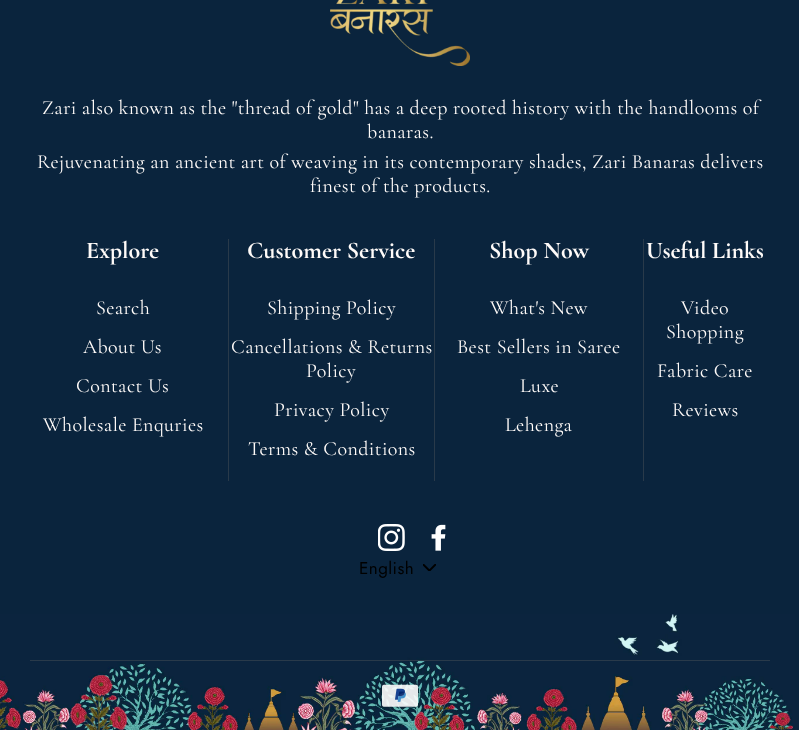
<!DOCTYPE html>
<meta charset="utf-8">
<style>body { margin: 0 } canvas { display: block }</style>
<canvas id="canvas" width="799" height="730"></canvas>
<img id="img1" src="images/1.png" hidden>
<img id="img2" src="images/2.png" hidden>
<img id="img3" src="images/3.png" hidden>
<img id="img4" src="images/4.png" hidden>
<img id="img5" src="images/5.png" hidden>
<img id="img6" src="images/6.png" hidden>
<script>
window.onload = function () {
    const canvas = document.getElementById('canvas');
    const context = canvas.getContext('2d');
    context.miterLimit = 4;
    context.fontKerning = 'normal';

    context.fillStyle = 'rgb(10, 36, 61)';
    context.fillRect(0, 0, 799, 730);
    context.drawImage(document.getElementById('img1'), 0, 614, 795, 116);
    context.drawImage(document.getElementById('img2'), 330, 0, 140, 66);
    context.fillStyle = 'rgb(41, 58, 74)';
    context.fillRect(434, 239, 1, 242);
    context.fillRect(228, 239, 1, 242);
    context.fillRect(643, 239, 1, 242);
    context.drawImage(document.getElementById('img3'), 378, 524, 27, 27);
    context.drawImage(document.getElementById('img4'), 431, 524, 15, 27);
    context.drawImage(document.getElementById('img5'), 423, 564, 13, 7);
    context.fillRect(30, 660, 740, 1);
    context.drawImage(document.getElementById('img6'), 381, 684, 38, 24);
    context.letterSpacing = '0.43px';
    context.font = '20px Cormorant Garamond';
    context.fillStyle = 'rgb(255, 251, 249)';
    context.fillText('Zari also known as the "thread of gold" has a deep rooted history with the handlooms of', 42, 114);
    context.fillText('banaras.', 367, 138);
    context.fillText('Rejuvenating an ancient art of weaving in its contemporary shades, Zari Banaras delivers', 37, 168);
    context.fillText('finest of the products.', 310, 192);
    context.letterSpacing = '0px';
    context.font = 'bold 24px Cormorant Garamond';
    context.fillText('Explore', 86, 258);
    context.letterSpacing = '0.43px';
    context.font = '20px Cormorant Garamond';
    context.fillText('Search', 96, 314);
    context.fillText('About Us', 83, 353);
    context.fillText('Contact Us', 76, 392);
    context.fillText('Wholesale Enquries', 43, 431);
    context.letterSpacing = '0px';
    context.font = 'bold 24px Cormorant Garamond';
    context.fillText('Customer Service', 247, 258);
    context.letterSpacing = '0.43px';
    context.font = '20px Cormorant Garamond';
    context.fillText('Shipping Policy', 267, 314);
    context.fillText('Cancellations & Returns', 231, 353);
    context.fillText('Policy', 306, 377);
    context.fillText('Privacy Policy', 274, 416);
    context.fillText('Terms & Conditions', 248, 455);
    context.letterSpacing = '0px';
    context.font = 'bold 24px Cormorant Garamond';
    context.fillText('Shop Now', 489, 258);
    context.letterSpacing = '0.43px';
    context.font = '20px Cormorant Garamond';
    context.fillText('What\'s New', 490, 314);
    context.fillText('Best Sellers in Saree', 457, 353);
    context.fillText('Luxe', 520, 392);
    context.fillText('Lehenga', 505, 431);
    context.letterSpacing = '0px';
    context.font = 'bold 24px Cormorant Garamond';
    context.fillText('Useful Links', 646, 258);
    context.letterSpacing = '0.43px';
    context.font = '20px Cormorant Garamond';
    context.fillText('Video', 681, 314);
    context.fillText('Shopping', 666, 338);
    context.fillText('Fabric Care', 657, 377);
    context.fillText('Reviews', 672, 416);
    context.font = '17px Jost';
    context.fillStyle = 'rgb(0, 0, 0)';
    context.fillText('English', 359, 574);
};
</script>
